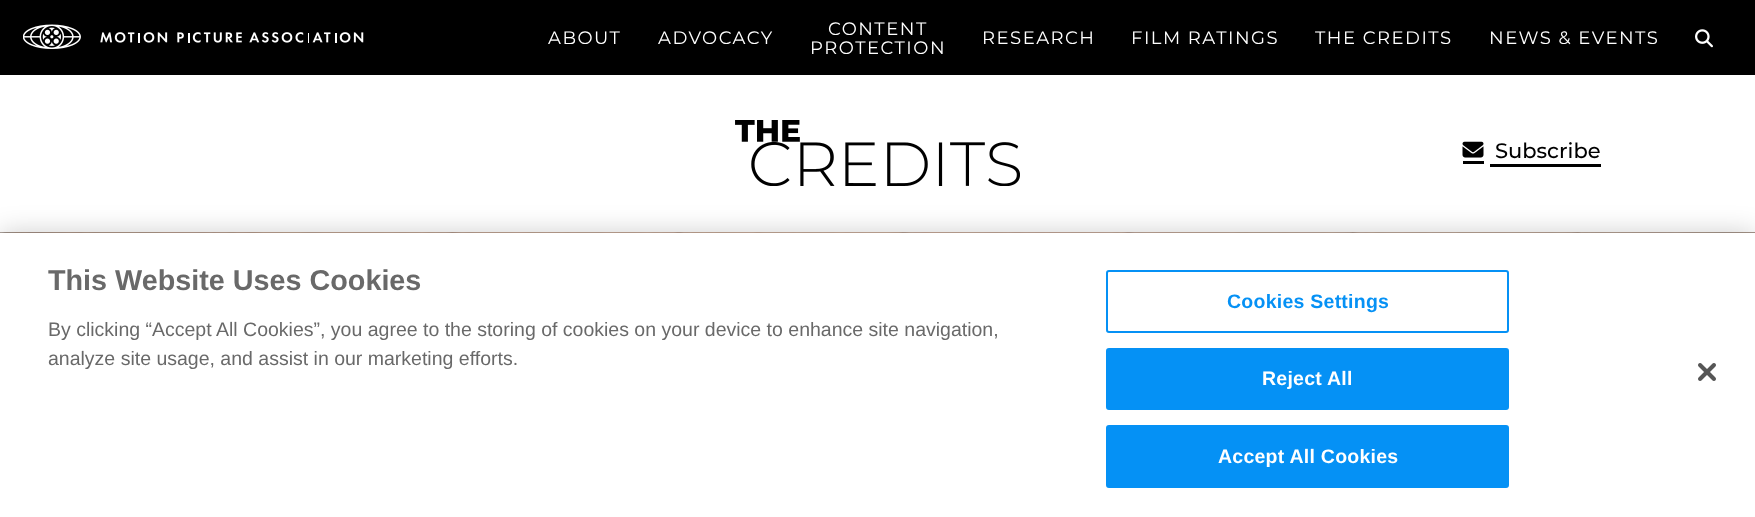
<!DOCTYPE html>
<meta charset="utf-8">
<style>body { margin: 0 } canvas { display: block }</style>
<canvas id="canvas" width="1755" height="517"></canvas>
<img id="img1" src="images/1.png" hidden>
<img id="img2" src="images/2.png" hidden>
<img id="img3" src="images/3.png" hidden>
<img id="img4" src="images/4.png" hidden>
<img id="img5" src="images/5.png" hidden>
<img id="img6" src="images/6.png" hidden>
<script>
window.onload = function () {
    const canvas = document.getElementById('canvas');
    const context = canvas.getContext('2d');
    context.miterLimit = 4;
    context.fontKerning = 'normal';

    context.fillStyle = 'rgb(255, 255, 255)';
    context.fillRect(0, 0, 1755, 517);
    context.fillStyle = 'rgb(0, 0, 0)';
    context.fillRect(0, 0, 1755, 75);
    context.drawImage(document.getElementById('img1'), 23, 24, 341, 25);
    context.drawImage(document.getElementById('img2'), 1695, 29, 18, 19);
    context.drawImage(document.getElementById('img3'), 735, 120, 285, 66);
    context.fillRect(1463, 161, 21, 3);
    context.fillRect(1490, 164, 111, 3);
    context.drawImage(document.getElementById('img4'), 1462, 141, 22, 17);
    context.drawImage(document.getElementById('img5'), 0, 232, 1755, 1);
    context.fillStyle = 'rgba(0, 0, 0, 0.2)';
    context.filter = 'blur(13.5px)';
    context.beginPath();
    context.rect(0, 233, 1755, 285);
    context.fill();
    context.filter = 'none';
    context.fillStyle = 'rgb(255, 255, 255)';
    context.fillRect(0, 233, 1755, 284);
    context.beginPath();
    context.roundRect(1107, 271, 401, 61, 2);
    context.strokeStyle = 'rgb(5, 145, 245)';
    context.lineWidth = 2;
    context.stroke();
    context.fillStyle = 'rgb(5, 145, 245)';
    context.beginPath();
    context.roundRect(1107, 349, 401, 60, 2);
    context.fill();
    context.stroke();
    context.beginPath();
    context.roundRect(1107, 426, 401, 61, 2);
    context.fill();
    context.stroke();
    context.drawImage(document.getElementById('img6'), 1698, 363, 18, 18);
    context.letterSpacing = '1.5px';
    context.font = '18px Montserrat';
    context.fillStyle = 'rgb(255, 255, 255)';
    context.fillText('ABOUT', 548, 44);
    context.fillText('ADVOCACY', 658, 44);
    context.fillText('CONTENT', 828, 35);
    context.fillText('PROTECTION', 810, 54);
    context.fillText('RESEARCH', 982, 44);
    context.fillText('FILM RATINGS', 1131, 44);
    context.fillText('THE CREDITS', 1315, 44);
    context.fillText('NEWS & EVENTS', 1489, 44);
    context.letterSpacing = '0px';
    context.font = '500 21px Montserrat';
    context.fillStyle = 'rgb(0, 0, 0)';
    context.fillText('Subscribe', 1495, 158);
    context.font = 'bold 28.75px Liberation Sans';
    context.fillStyle = 'rgb(105, 105, 105)';
    context.fillText('This Website Uses Cookies', 48, 290);
    context.font = '19.5px Liberation Sans';
    context.fillText('By clicking “Accept All Cookies”, you agree to the storing of cookies on your device to enhance site navigation,', 48, 336);
    context.fillText('analyze site usage, and assist in our marketing efforts.', 48, 365);
    context.letterSpacing = '0.25px';
    context.font = 'bold 19.5px Liberation Sans';
    context.fillStyle = 'rgb(5, 145, 245)';
    context.fillText('Cookies Settings', 1227, 308);
    context.fillStyle = 'rgb(255, 255, 255)';
    context.fillText('Reject All', 1262, 385);
    context.fillText('Accept All Cookies', 1218, 463);
};
</script>
